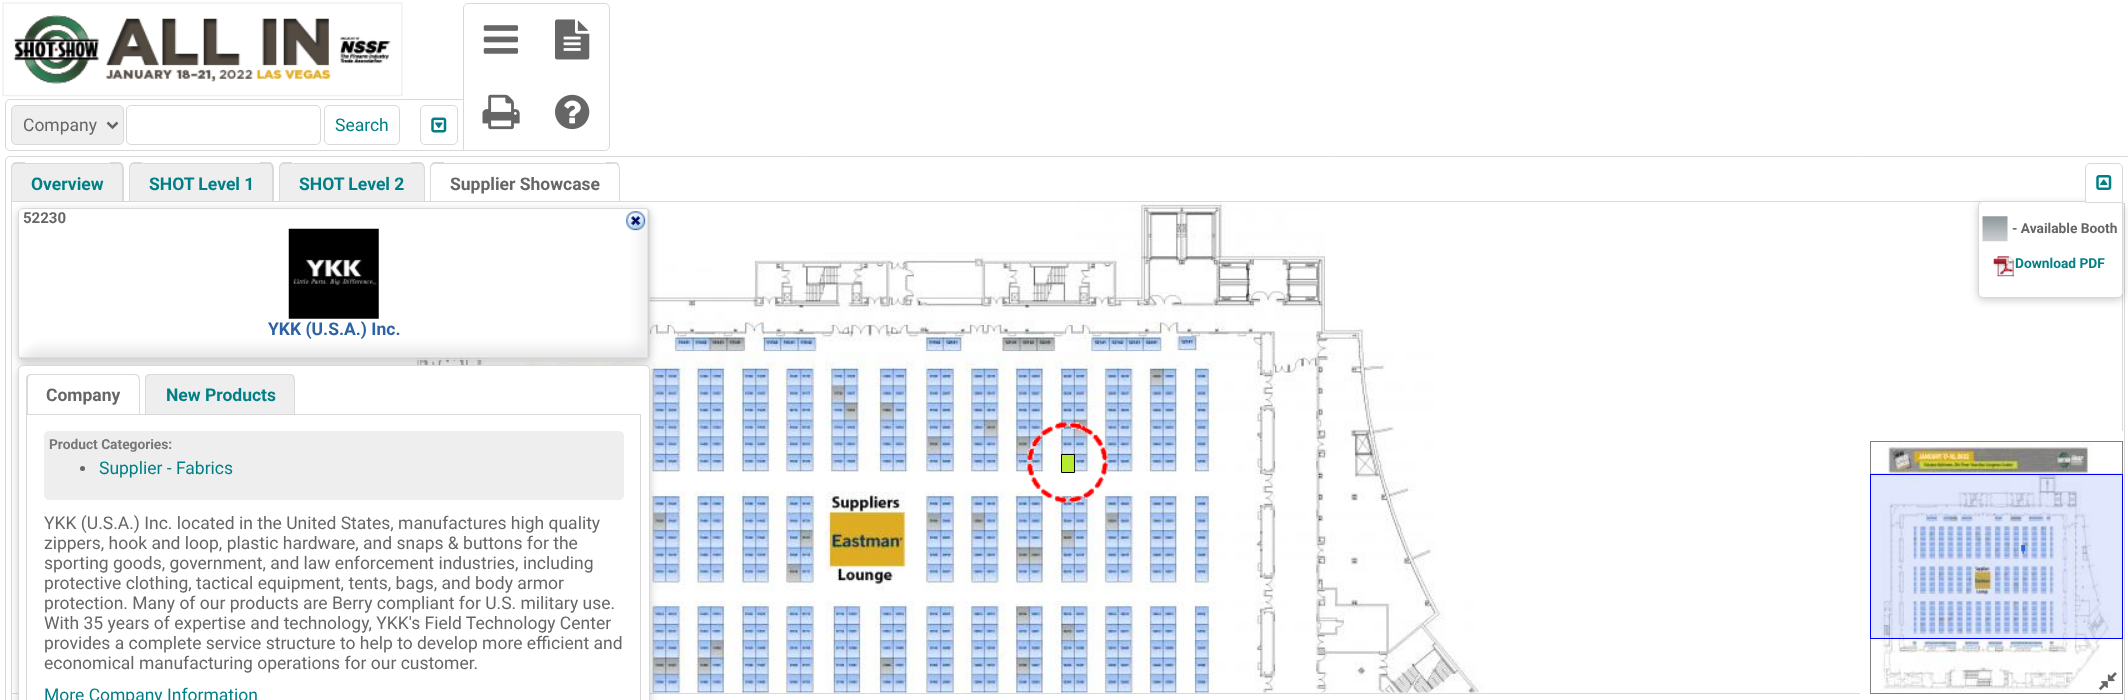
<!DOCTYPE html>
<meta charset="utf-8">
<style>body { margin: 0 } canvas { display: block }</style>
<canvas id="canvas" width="2128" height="700"></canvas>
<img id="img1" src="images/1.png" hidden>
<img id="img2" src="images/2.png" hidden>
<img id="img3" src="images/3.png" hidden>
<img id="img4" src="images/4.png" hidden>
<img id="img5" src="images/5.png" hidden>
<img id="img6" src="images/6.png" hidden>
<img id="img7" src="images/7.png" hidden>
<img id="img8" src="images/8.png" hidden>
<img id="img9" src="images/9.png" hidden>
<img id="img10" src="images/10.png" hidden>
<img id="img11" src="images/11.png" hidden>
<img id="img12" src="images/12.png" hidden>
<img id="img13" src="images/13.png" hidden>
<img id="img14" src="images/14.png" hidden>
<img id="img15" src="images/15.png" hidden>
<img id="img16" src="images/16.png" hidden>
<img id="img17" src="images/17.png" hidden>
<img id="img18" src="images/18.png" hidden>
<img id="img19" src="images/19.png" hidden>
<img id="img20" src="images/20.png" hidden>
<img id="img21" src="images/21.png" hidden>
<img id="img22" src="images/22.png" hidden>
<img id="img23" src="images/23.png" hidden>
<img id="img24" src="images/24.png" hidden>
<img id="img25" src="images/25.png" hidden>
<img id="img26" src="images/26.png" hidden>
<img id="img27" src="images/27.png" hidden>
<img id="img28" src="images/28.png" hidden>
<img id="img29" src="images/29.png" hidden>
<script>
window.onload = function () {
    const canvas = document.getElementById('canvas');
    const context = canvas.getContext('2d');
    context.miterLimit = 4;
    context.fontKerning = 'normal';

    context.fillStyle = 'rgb(255, 255, 255)';
    context.fillRect(0, 0, 2128, 700);
    context.drawImage(document.getElementById('img1'), 2, 2, 401, 95);
    context.beginPath();
    context.roundRect(463.5, 3.5, 146, 147, [4.5, 4.5, 4.5, 0]);
    context.strokeStyle = 'rgb(217, 217, 217)';
    context.stroke();
    context.drawImage(document.getElementById('img2'), 483, 25, 36, 29);
    context.drawImage(document.getElementById('img3'), 555, 19, 35, 41);
    context.drawImage(document.getElementById('img4'), 482, 94, 38, 36);
    context.drawImage(document.getElementById('img5'), 555, 94, 35, 36);
    context.beginPath();
    context.roundRect(5.5, 99.5, 458, 51, [4.5, 0, 0, 4.5]);
    context.fill();
    context.stroke();
    context.fillStyle = 'rgb(239, 239, 239)';
    context.beginPath();
    context.roundRect(11.5, 105.5, 112, 39, 4.5);
    context.fill();
    context.stroke();
    context.beginPath();
    context.moveTo(107.5, 122.5);
    context.lineTo(112.5, 127.5);
    context.lineTo(117.5, 122.5);
    context.strokeStyle = 'rgb(102, 102, 102)';
    context.lineWidth = 2.5;
    context.stroke();
    context.beginPath();
    context.roundRect(126.5, 105.5, 194, 39, 4.5);
    context.strokeStyle = 'rgb(217, 217, 217)';
    context.lineWidth = 1;
    context.stroke();
    context.beginPath();
    context.roundRect(324.5, 105.5, 75, 39, 4.5);
    context.stroke();
    context.beginPath();
    context.roundRect(420.5, 105.5, 37, 39, 4.5);
    context.stroke();
    context.drawImage(document.getElementById('img6'), 431, 117, 16, 16);
    context.beginPath();
    context.roundRect(5.5, 156.5, 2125, 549, 4.5);
    context.stroke();
    context.fillStyle = 'rgb(238, 238, 238)';
    context.beginPath();
    context.roundRect(11, 163, 14, 41, [5, 0, 0, 0]);
    context.fill();
    context.fillStyle = 'rgb(217, 217, 217)';
    context.beginPath();
    context.moveTo(16, 162);
    context.lineTo(25, 162);
    context.lineTo(25, 204);
    context.lineTo(11, 204);
    context.lineTo(11, 168);
    context.bezierCurveTo(11, 165, 13, 162, 16, 162);
    context.closePath();
    context.moveTo(16, 164);
    context.lineTo(25, 164);
    context.lineTo(25, 204);
    context.lineTo(12, 204);
    context.lineTo(12, 168);
    context.bezierCurveTo(12, 165, 14, 164, 16, 164);
    context.closePath();
    context.fill('evenodd');
    context.fillStyle = 'rgb(238, 238, 238)';
    context.fillRect(25, 164, 85, 37);
    context.fillStyle = 'rgb(217, 217, 217)';
    context.fillRect(25, 163, 85, 1);
    context.fillStyle = 'rgb(238, 238, 238)';
    context.beginPath();
    context.roundRect(110, 163, 14, 41, [0, 5, 0, 0]);
    context.fill();
    context.fillStyle = 'rgb(217, 217, 217)';
    context.beginPath();
    context.moveTo(110, 162);
    context.bezierCurveTo(122, 162, 124, 160, 124, 174);
    context.lineTo(124, 204);
    context.lineTo(110, 204);
    context.closePath();
    context.moveTo(110, 164);
    context.bezierCurveTo(121, 164, 122, 161, 122, 174);
    context.lineTo(122, 204);
    context.lineTo(110, 204);
    context.closePath();
    context.fill('evenodd');
    context.fillStyle = 'rgb(238, 238, 238)';
    context.beginPath();
    context.roundRect(129, 163, 14, 41, [5, 0, 0, 0]);
    context.fill();
    context.fillStyle = 'rgb(217, 217, 217)';
    context.beginPath();
    context.moveTo(134, 162);
    context.lineTo(142, 162);
    context.lineTo(142, 204);
    context.lineTo(129, 204);
    context.lineTo(129, 168);
    context.bezierCurveTo(129, 165, 131, 162, 134, 162);
    context.closePath();
    context.moveTo(134, 164);
    context.lineTo(142, 164);
    context.lineTo(142, 204);
    context.lineTo(130, 204);
    context.lineTo(130, 168);
    context.bezierCurveTo(130, 165, 132, 164, 134, 164);
    context.closePath();
    context.fill('evenodd');
    context.fillStyle = 'rgb(238, 238, 238)';
    context.fillRect(143, 164, 117, 37);
    context.fillStyle = 'rgb(217, 217, 217)';
    context.fillRect(143, 163, 117, 1);
    context.fillStyle = 'rgb(238, 238, 238)';
    context.beginPath();
    context.roundRect(260, 163, 14, 41, [0, 5, 0, 0]);
    context.fill();
    context.fillStyle = 'rgb(217, 217, 217)';
    context.beginPath();
    context.moveTo(260, 162);
    context.bezierCurveTo(272, 162, 274, 160, 274, 174);
    context.lineTo(274, 204);
    context.lineTo(260, 204);
    context.closePath();
    context.moveTo(260, 164);
    context.bezierCurveTo(271, 164, 272, 161, 272, 174);
    context.lineTo(272, 204);
    context.lineTo(260, 204);
    context.closePath();
    context.fill('evenodd');
    context.fillStyle = 'rgb(238, 238, 238)';
    context.beginPath();
    context.roundRect(279, 163, 14, 41, [5, 0, 0, 0]);
    context.fill();
    context.fillStyle = 'rgb(217, 217, 217)';
    context.beginPath();
    context.moveTo(284, 162);
    context.lineTo(292, 162);
    context.lineTo(292, 204);
    context.lineTo(279, 204);
    context.lineTo(279, 168);
    context.bezierCurveTo(279, 165, 281, 162, 284, 162);
    context.closePath();
    context.moveTo(284, 164);
    context.lineTo(292, 164);
    context.lineTo(292, 204);
    context.lineTo(280, 204);
    context.lineTo(280, 168);
    context.bezierCurveTo(280, 165, 282, 164, 284, 164);
    context.closePath();
    context.fill('evenodd');
    context.fillStyle = 'rgb(238, 238, 238)';
    context.fillRect(293, 164, 118, 37);
    context.fillStyle = 'rgb(217, 217, 217)';
    context.fillRect(293, 163, 118, 1);
    context.fillStyle = 'rgb(238, 238, 238)';
    context.beginPath();
    context.roundRect(411, 163, 14, 41, [0, 5, 0, 0]);
    context.fill();
    context.fillStyle = 'rgb(217, 217, 217)';
    context.beginPath();
    context.moveTo(411, 162);
    context.bezierCurveTo(423, 162, 425, 160, 425, 174);
    context.lineTo(425, 204);
    context.lineTo(411, 204);
    context.closePath();
    context.moveTo(411, 164);
    context.bezierCurveTo(422, 164, 424, 161, 424, 174);
    context.lineTo(424, 204);
    context.lineTo(411, 204);
    context.closePath();
    context.moveTo(435, 162);
    context.lineTo(444, 162);
    context.lineTo(444, 204);
    context.lineTo(430, 204);
    context.lineTo(430, 168);
    context.bezierCurveTo(430, 165, 432, 162, 435, 162);
    context.closePath();
    context.moveTo(435, 164);
    context.lineTo(444, 164);
    context.lineTo(444, 204);
    context.lineTo(431, 204);
    context.lineTo(431, 168);
    context.bezierCurveTo(431, 165, 433, 164, 435, 164);
    context.closePath();
    context.fill('evenodd');
    context.fillRect(444, 163, 162, 1);
    context.beginPath();
    context.moveTo(606, 162);
    context.bezierCurveTo(618, 162, 620, 160, 620, 174);
    context.lineTo(620, 204);
    context.lineTo(606, 204);
    context.closePath();
    context.moveTo(606, 164);
    context.bezierCurveTo(617, 164, 619, 161, 619, 174);
    context.lineTo(619, 204);
    context.lineTo(606, 204);
    context.closePath();
    context.fill('evenodd');
    context.strokeRect(11.5, 203.5, 2113, 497);
    context.fillStyle = 'rgb(255, 255, 255)';
    context.fillRect(12, 202, 2110, 2);
    context.strokeRect(11.5, 201.5, 2111, 492);
    context.drawImage(document.getElementById('img7'), 648, 260, 177, 92);
    context.drawImage(document.getElementById('img8'), 825, 251, 250, 101);
    context.drawImage(document.getElementById('img9'), 1075, 202, 250, 150);
    context.drawImage(document.getElementById('img10'), 1325, 326, 40, 26);
    context.drawImage(document.getElementById('img11'), 415, 358, 160, 7);
    context.drawImage(document.getElementById('img12'), 575, 351, 241, 241);
    context.drawImage(document.getElementById('img13'), 825, 351, 250, 241);
    context.drawImage(document.getElementById('img14'), 1075, 351, 250, 251);
    context.drawImage(document.getElementById('img15'), 1325, 351, 110, 251);
    context.fillStyle = 'rgb(181, 236, 49)';
    context.beginPath();
    context.rect(1061.5, 454.5, 13, 18);
    context.fill();
    context.strokeStyle = 'rgb(0, 0, 0)';
    context.stroke();
    context.drawImage(document.getElementById('img16'), 1026, 422, 82, 81);
    context.drawImage(document.getElementById('img17'), 650, 601, 166, 92);
    context.drawImage(document.getElementById('img18'), 825, 601, 250, 92);
    context.drawImage(document.getElementById('img19'), 1075, 601, 250, 92);
    context.drawImage(document.getElementById('img20'), 1325, 601, 160, 92);
    context.fillStyle = 'rgba(0, 0, 0, 0.2)';
    context.filter = 'blur(4px)';
    context.beginPath();
    context.roundRect(18, 210, 632, 153, 5);
    context.fill();
    context.filter = 'none';
    context.drawImage(document.getElementById('img21'), 18, 209, 631, 150);
    context.beginPath();
    context.roundRect(18.5, 208.5, 631, 151, 4.5);
    context.strokeStyle = 'rgb(217, 217, 217)';
    context.stroke();
    context.drawImage(document.getElementById('img22'), 626, 211, 20, 20);
    context.drawImage(document.getElementById('img23'), 288, 228, 91, 91);
    context.filter = 'blur(4px)';
    context.beginPath();
    context.roundRect(18, 368, 632, 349, 5);
    context.fill();
    context.filter = 'none';
    context.fillStyle = 'rgb(255, 255, 255)';
    context.beginPath();
    context.roundRect(18.5, 365.5, 631, 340, 4.5);
    context.fill();
    context.stroke();
    context.fillStyle = 'rgb(217, 217, 217)';
    context.beginPath();
    context.moveTo(31, 374);
    context.lineTo(40, 374);
    context.lineTo(40, 415);
    context.lineTo(26, 415);
    context.lineTo(26, 379);
    context.bezierCurveTo(26, 376, 28, 374, 31, 374);
    context.closePath();
    context.moveTo(31, 375);
    context.lineTo(40, 375);
    context.lineTo(40, 415);
    context.lineTo(28, 415);
    context.lineTo(28, 379);
    context.bezierCurveTo(28, 377, 29, 375, 31, 375);
    context.closePath();
    context.fill('evenodd');
    context.fillRect(40, 374, 86, 1);
    context.beginPath();
    context.moveTo(126, 374);
    context.bezierCurveTo(138, 374, 140, 372, 140, 385);
    context.lineTo(140, 415);
    context.lineTo(126, 415);
    context.closePath();
    context.moveTo(126, 375);
    context.bezierCurveTo(137, 375, 139, 373, 139, 385);
    context.lineTo(139, 415);
    context.lineTo(126, 415);
    context.closePath();
    context.fill('evenodd');
    context.fillStyle = 'rgb(238, 238, 238)';
    context.beginPath();
    context.roundRect(145, 374, 14, 41, [5, 0, 0, 0]);
    context.fill();
    context.fillStyle = 'rgb(217, 217, 217)';
    context.beginPath();
    context.moveTo(150, 374);
    context.lineTo(159, 374);
    context.lineTo(159, 415);
    context.lineTo(145, 415);
    context.lineTo(145, 379);
    context.bezierCurveTo(145, 376, 147, 374, 150, 374);
    context.closePath();
    context.moveTo(150, 375);
    context.lineTo(159, 375);
    context.lineTo(159, 415);
    context.lineTo(146, 415);
    context.lineTo(146, 379);
    context.bezierCurveTo(146, 377, 148, 375, 150, 375);
    context.closePath();
    context.fill('evenodd');
    context.fillStyle = 'rgb(238, 238, 238)';
    context.fillRect(159, 375, 122, 39);
    context.fillStyle = 'rgb(217, 217, 217)';
    context.fillRect(159, 374, 122, 1);
    context.fillStyle = 'rgb(238, 238, 238)';
    context.beginPath();
    context.roundRect(281, 374, 14, 41, [0, 5, 0, 0]);
    context.fill();
    context.fillStyle = 'rgb(217, 217, 217)';
    context.beginPath();
    context.moveTo(281, 374);
    context.bezierCurveTo(293, 374, 295, 372, 295, 385);
    context.lineTo(295, 415);
    context.lineTo(281, 415);
    context.closePath();
    context.moveTo(281, 375);
    context.bezierCurveTo(292, 375, 294, 373, 294, 385);
    context.lineTo(294, 415);
    context.lineTo(281, 415);
    context.closePath();
    context.fill('evenodd');
    context.strokeRect(26.5, 414.5, 614, 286);
    context.fillStyle = 'rgb(238, 238, 238)';
    context.beginPath();
    context.roundRect(44, 431, 580, 69, 5);
    context.fill();
    context.fillStyle = 'rgb(102, 102, 102)';
    context.beginPath();
    context.arc(82.5, 468.5, 2.5, 0, 2 * Math.PI);
    context.fill();
    context.fillStyle = 'rgba(0, 0, 0, 0.2)';
    context.filter = 'blur(4px)';
    context.beginPath();
    context.roundRect(1978, 204, 145, 96, 5);
    context.fill();
    context.filter = 'none';
    context.fillStyle = 'rgb(255, 255, 255)';
    context.beginPath();
    context.roundRect(1978.5, 201.5, 144, 96, [4.5, 0, 4.5, 4.5]);
    context.fill();
    context.stroke();
    context.beginPath();
    context.roundRect(2085.5, 163.5, 37, 39, [4.5, 4.5, 0, 0]);
    context.fill();
    context.stroke();
    context.drawImage(document.getElementById('img24'), 2096, 175, 16, 15);
    context.drawImage(document.getElementById('img25'), 1982, 216, 26, 26);
    context.drawImage(document.getElementById('img26'), 1993, 256, 21, 21);
    context.fillRect(1860, 431, 263, 263);
    context.strokeStyle = 'rgb(128, 128, 128)';
    context.strokeRect(1870.5, 441.5, 252, 252);
    context.drawImage(document.getElementById('img27'), 1881, 442, 230, 251);
    context.drawImage(document.getElementById('img28'), 2021, 545, 4, 9);
    context.fillStyle = 'rgba(105, 140, 250, 0.2)';
    context.fillRect(1870, 473, 253, 165);
    context.strokeStyle = 'rgb(0, 0, 255)';
    context.strokeRect(1870.5, 474.5, 252, 164);
    context.drawImage(document.getElementById('img29'), 2099, 672, 18, 19);
    context.font = '17.5px Roboto';
    context.fillStyle = 'rgb(102, 102, 102)';
    context.fillText('Company', 23, 131);
    context.fillStyle = 'rgb(0, 127, 134)';
    context.fillText('Search', 335, 131);
    context.font = 'bold 17.5px Roboto';
    context.fillText('Overview', 31, 190);
    context.fillText('SHOT Level 1', 149, 190);
    context.fillText('SHOT Level 2', 299, 190);
    context.fillStyle = 'rgb(102, 102, 102)';
    context.fillText('Supplier Showcase', 450, 190);
    context.font = 'bold 15px Roboto';
    context.fillText('52230', 23, 223);
    context.font = 'bold 17.5px Roboto';
    context.fillStyle = 'rgb(45, 98, 165)';
    context.fillText('YKK (U.S.A.) Inc.', 268, 335);
    context.fillStyle = 'rgb(102, 102, 102)';
    context.fillText('Company', 46, 401);
    context.fillStyle = 'rgb(0, 127, 134)';
    context.fillText('New Products', 166, 401);
    context.font = 'bold 13.75px Roboto';
    context.fillStyle = 'rgb(119, 119, 119)';
    context.fillText('Product Categories:', 49, 449);
    context.font = '17.5px Roboto';
    context.fillStyle = 'rgb(0, 127, 134)';
    context.fillText('Supplier - Fabrics', 99, 474);
    context.fillStyle = 'rgb(102, 102, 102)';
    context.fillText('YKK (U.S.A.) Inc. located in the United States, manufactures high quality', 44, 529);
    context.fillText('zippers, hook and loop, plastic hardware, and snaps & buttons for the', 44, 549);
    context.fillText('sporting goods, government, and law enforcement industries, including', 44, 569);
    context.fillText('protective clothing, tactical equipment, tents, bags, and body armor', 44, 589);
    context.fillText('protection. Many of our products are Berry compliant for U.S. military use.', 44, 609);
    context.fillText('With 35 years of expertise and technology, YKK\'s Field Technology Center', 44, 629);
    context.fillText('provides a complete service structure to help to develop more efficient and', 44, 649);
    context.fillText('economical manufacturing operations for our customer.', 44, 669);
    context.fillStyle = 'rgb(0, 127, 134)';
    context.fillText('More Company Information', 44, 701);
    context.font = 'bold 13.75px Roboto';
    context.fillStyle = 'rgb(102, 102, 102)';
    context.fillText('- Available Booth', 2012, 233);
    context.fillStyle = 'rgb(0, 127, 134)';
    context.fillText('Download PDF', 2015, 268);
};
</script>
